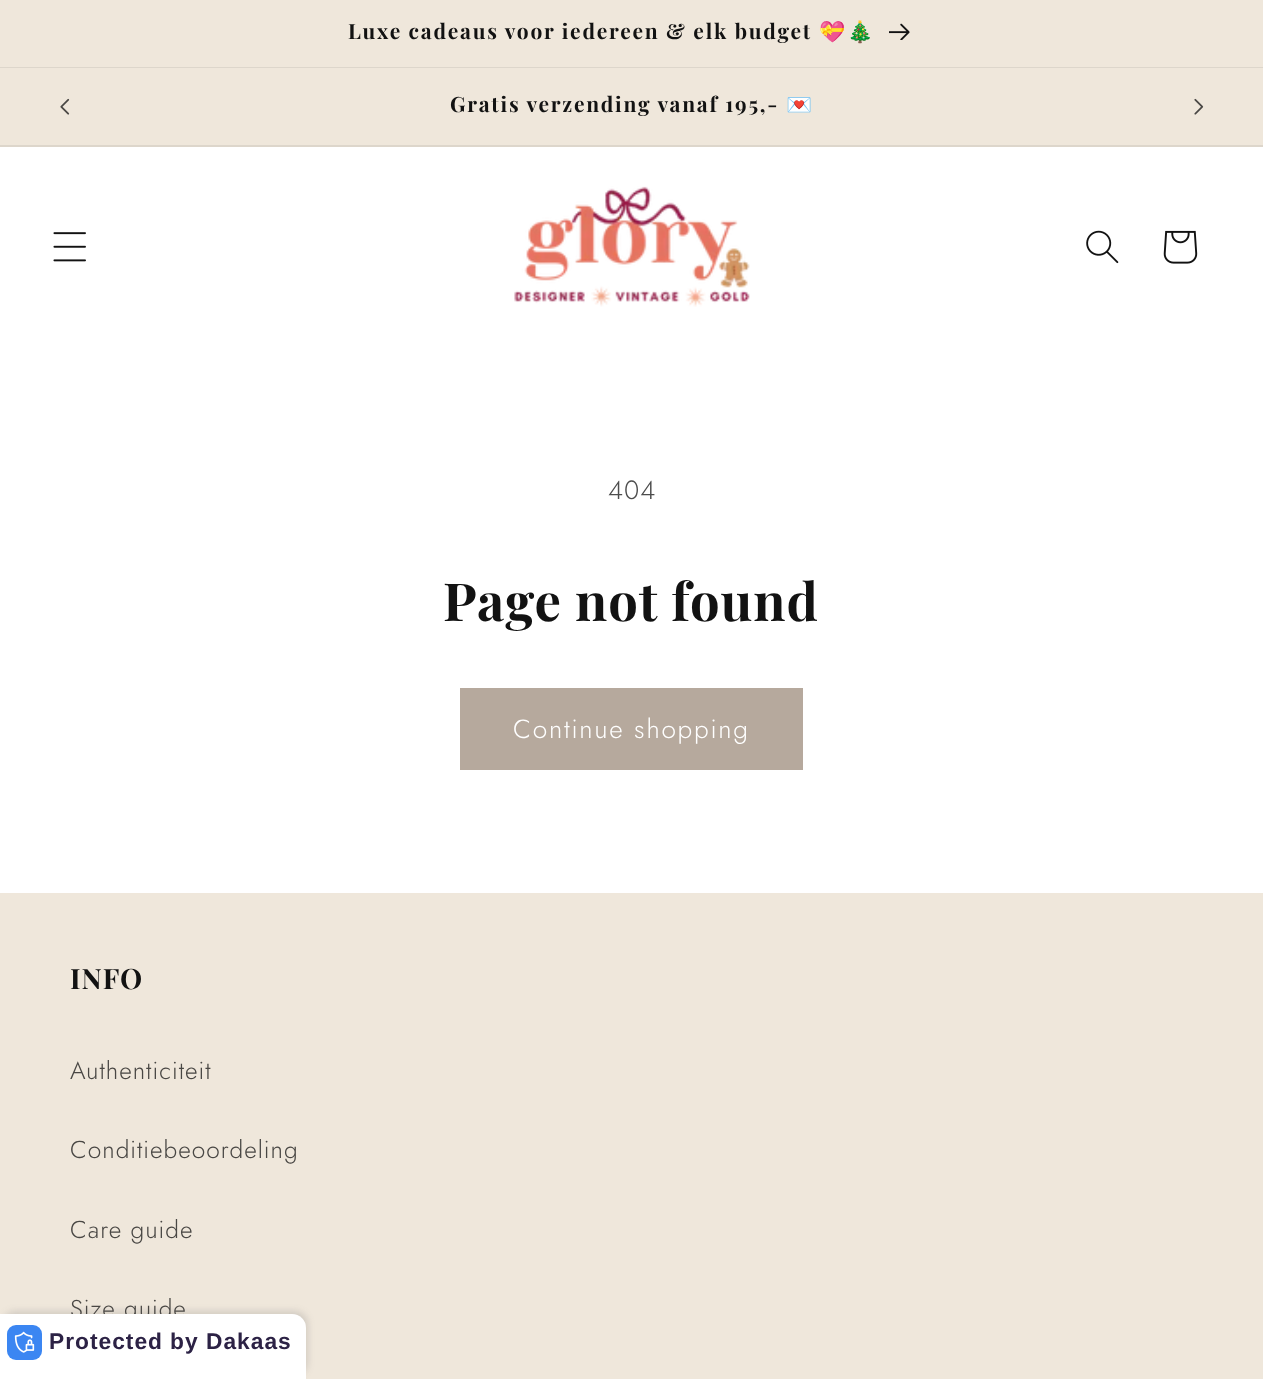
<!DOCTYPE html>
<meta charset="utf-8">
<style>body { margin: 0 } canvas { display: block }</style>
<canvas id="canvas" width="1263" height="1379"></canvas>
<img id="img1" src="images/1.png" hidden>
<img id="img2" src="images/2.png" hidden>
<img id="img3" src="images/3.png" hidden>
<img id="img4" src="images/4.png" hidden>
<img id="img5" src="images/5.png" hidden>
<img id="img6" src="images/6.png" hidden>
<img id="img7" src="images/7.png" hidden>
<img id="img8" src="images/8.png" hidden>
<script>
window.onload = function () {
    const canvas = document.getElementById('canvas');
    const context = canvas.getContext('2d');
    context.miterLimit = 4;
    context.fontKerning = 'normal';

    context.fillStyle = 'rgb(255, 255, 255)';
    context.fillRect(0, 0, 1263, 1379);
    context.fillStyle = 'rgb(239, 231, 219)';
    context.fillRect(0, 0, 1263, 67);
    context.fillStyle = 'rgb(221, 214, 203)';
    context.fillRect(0, 67, 1263, 1);
    context.drawImage(document.getElementById('img1'), 889, 23, 21, 17);
    context.fillStyle = 'rgb(239, 231, 219)';
    context.fillRect(0, 68, 1263, 77);
    context.fillStyle = 'rgb(221, 214, 203)';
    context.fillRect(0, 145, 1263, 2);
    context.drawImage(document.getElementById('img2'), 60, 98, 10, 17);
    context.drawImage(document.getElementById('img3'), 1194, 98, 10, 17);
    context.drawImage(document.getElementById('img4'), 53, 232, 33, 30);
    context.drawImage(document.getElementById('img5'), 514, 186, 236, 121);
    context.drawImage(document.getElementById('img6'), 1086, 230, 33, 34);
    context.drawImage(document.getElementById('img7'), 1163, 230, 35, 34);
    context.fillStyle = 'rgb(182, 169, 157)';
    context.fillRect(460, 688, 343, 82);
    context.fillStyle = 'rgb(239, 231, 219)';
    context.fillRect(0, 893, 1263, 486);
    context.fillStyle = 'rgba(64, 60, 67, 0.16)';
    context.filter = 'blur(3.5px)';
    context.beginPath();
    context.roundRect(2, 1311, 306, 65, 14);
    context.fill();
    context.filter = 'none';
    context.letterSpacing = '1.75px';
    context.font = 'bold 21px Playfair Display';
    context.fillStyle = 'rgb(18, 18, 18)';
    context.fillText('Luxe cadeaus voor iedereen & elk budget', 348, 39);
    context.font = 'bold 21px Noto Color Emoji';
    context.fillText('💝🎄', 819, 39);
    context.font = 'bold 21px Playfair Display';
    context.fillText('Gratis verzending vanaf 195,-', 450, 112);
    context.font = 'bold 21px Noto Color Emoji';
    context.fillText('💌', 786, 112);
    context.letterSpacing = '1px';
    context.font = '300 26.25px Jost';
    context.fillStyle = 'rgb(77, 77, 77)';
    context.fillText('404', 608, 499);
    context.font = 'bold 52.5px Playfair Display';
    context.fillStyle = 'rgb(18, 18, 18)';
    context.fillText('Page not found', 443, 621);
    context.letterSpacing = '1.75px';
    context.font = '300 26.25px Jost';
    context.fillStyle = 'rgb(255, 255, 255)';
    context.fillText('Continue shopping', 513, 738);
    context.letterSpacing = '1px';
    context.font = 'bold 28px Playfair Display';
    context.fillStyle = 'rgb(18, 18, 18)';
    context.fillText('INFO', 70, 989);
    context.font = '300 24.5px Jost';
    context.fillStyle = 'rgb(73, 71, 68)';
    context.fillText('Authenticiteit', 70, 1079);
    context.fillText('Conditiebeoordeling', 70, 1158);
    context.fillText('Care guide', 70, 1238);
    context.fillText('Size guide', 70, 1317);
    context.fillStyle = 'rgb(255, 255, 255)';
    context.beginPath();
    context.roundRect(0, 1314, 306, 65, [0, 14, 0, 0]);
    context.fill();
    context.fillStyle = 'rgb(59, 134, 242)';
    context.beginPath();
    context.roundRect(7, 1325, 35, 35, 9);
    context.fill();
    context.drawImage(document.getElementById('img8'), 14, 1331, 21, 22);
    context.font = 'bold 22.75px Liberation Sans';
    context.fillStyle = 'rgb(44, 34, 69)';
    context.fillText('Protected', 49, 1349);
    context.fillText('by', 170, 1349);
    context.fillText('Dakaas', 206, 1349);
};
</script>
